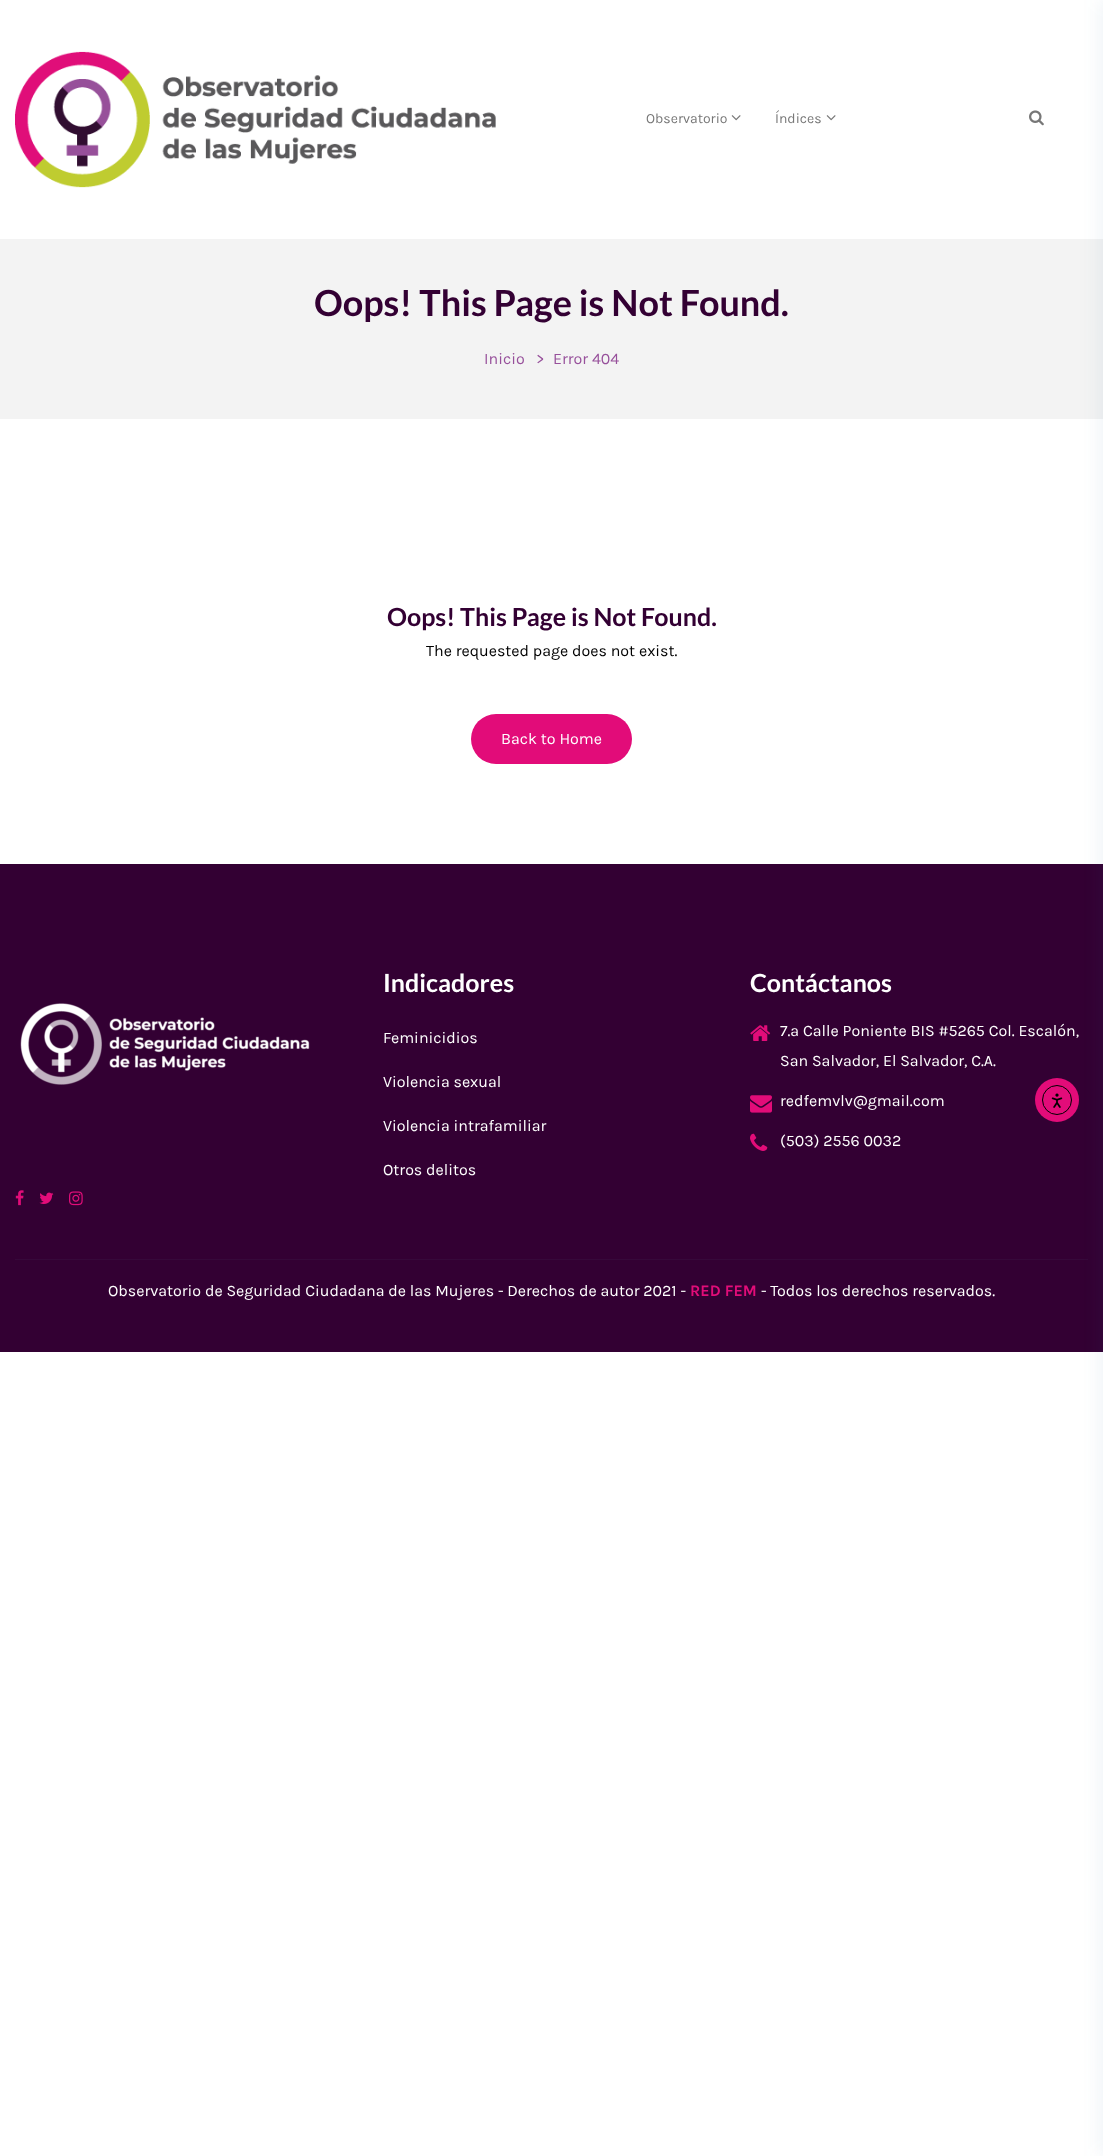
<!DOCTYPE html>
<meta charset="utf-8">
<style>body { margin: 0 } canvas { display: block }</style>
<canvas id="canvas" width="1103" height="2156"></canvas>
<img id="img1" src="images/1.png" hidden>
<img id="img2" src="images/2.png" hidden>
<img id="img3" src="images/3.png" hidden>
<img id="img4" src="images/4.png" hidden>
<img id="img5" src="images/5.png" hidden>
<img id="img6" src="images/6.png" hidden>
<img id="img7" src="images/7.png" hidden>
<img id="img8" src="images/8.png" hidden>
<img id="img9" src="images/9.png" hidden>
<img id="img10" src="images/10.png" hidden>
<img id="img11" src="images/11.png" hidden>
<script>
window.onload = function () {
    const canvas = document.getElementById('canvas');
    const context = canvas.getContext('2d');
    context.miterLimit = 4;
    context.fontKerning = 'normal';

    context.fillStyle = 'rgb(255, 255, 255)';
    context.fillRect(0, 0, 1103, 2156);
    context.drawImage(document.getElementById('img1'), 15, 51, 481, 137);
    context.drawImage(document.getElementById('img2'), 731, 115, 10, 6);
    context.drawImage(document.getElementById('img2'), 826, 115, 10, 6);
    context.drawImage(document.getElementById('img3'), 1029, 110, 15, 16);
    context.fillStyle = 'rgb(243, 243, 243)';
    context.fillRect(0, 239, 1103, 180);
    context.fillStyle = 'rgb(226, 12, 121)';
    context.beginPath();
    context.roundRect(471, 714, 161, 50, 25);
    context.fill();
    context.fillStyle = 'rgb(51, 0, 51)';
    context.fillRect(0, 864, 1103, 488);
    context.drawImage(document.getElementById('img4'), 20, 1003, 290, 82);
    context.drawImage(document.getElementById('img5'), 15, 1190, 9, 16);
    context.drawImage(document.getElementById('img6'), 39, 1192, 15, 12);
    context.drawImage(document.getElementById('img7'), 69, 1191, 14, 15);
    context.drawImage(document.getElementById('img8'), 750, 1025, 21, 16);
    context.drawImage(document.getElementById('img9'), 750, 1095, 22, 18);
    context.drawImage(document.getElementById('img10'), 750, 1133, 18, 18);
    context.fillStyle = 'rgb(54, 9, 58)';
    context.fillRect(15, 1259, 1073, 1);
    context.fillStyle = 'rgba(44, 101, 144, 0.1)';
    context.filter = 'blur(10px)';
    context.beginPath();
    context.rect(1103, 0, 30, 2156);
    context.fill();
    context.filter = 'none';
    context.fillStyle = 'rgb(226, 12, 121)';
    context.beginPath();
    context.arc(1057, 1100, 22, 0, 2 * Math.PI);
    context.fill();
    context.beginPath();
    context.arc(1057, 1100, 14.5, 0, 2 * Math.PI);
    context.strokeStyle = 'rgb(0, 0, 0)';
    context.stroke();
    context.drawImage(document.getElementById('img11'), 1051, 1093, 12, 15);
    context.font = '14px Karla';
    context.fillStyle = 'rgb(119, 119, 119)';
    context.fillText('Observatorio', 646, 123);
    context.fillText('Índices', 775, 123);
    context.font = 'bold 36px Lato';
    context.fillStyle = 'rgb(51, 0, 51)';
    context.fillText('Oops! This Page is Not Found.', 314, 316);
    context.font = '16px Karla';
    context.fillStyle = 'rgb(151, 80, 155)';
    context.fillText('Inicio', 484, 364);
    context.fillText('>', 536, 364);
    context.fillText('Error 404', 553, 364);
    context.font = 'bold 25px Lato';
    context.fillStyle = 'rgb(51, 0, 51)';
    context.fillText('Oops! This Page is Not Found.', 387, 626);
    context.font = '16px Karla';
    context.fillStyle = 'rgb(0, 0, 0)';
    context.fillText('The requested page does not exist.', 426, 656);
    context.fillStyle = 'rgb(255, 255, 255)';
    context.fillText('Back to Home', 501, 744);
    context.font = 'bold 25px Lato';
    context.fillText('Indicadores', 383, 992);
    context.font = '16px Karla';
    context.fillText('Feminicidios', 383, 1043);
    context.fillText('Violencia sexual', 383, 1087);
    context.fillText('Violencia intrafamiliar', 383, 1131);
    context.fillText('Otros delitos', 383, 1175);
    context.font = 'bold 25px Lato';
    context.fillText('Contáctanos', 750, 992);
    context.font = '16px Karla';
    context.fillText('7.ª Calle Poniente BIS #5265 Col. Escalón,', 780, 1036);
    context.fillText('San Salvador, El Salvador, C.A.', 780, 1066);
    context.fillText('redfemvlv@gmail.com', 780, 1106);
    context.fillText('(503) 2556 0032', 780, 1146);
    context.fillText('Observatorio de Seguridad Ciudadana de las Mujeres - Derechos de autor 2021 -', 108, 1296);
    context.font = 'bold 16px Karla';
    context.fillStyle = 'rgb(226, 12, 121)';
    context.fillText('RED FEM', 690, 1296);
    context.font = '16px Karla';
    context.fillStyle = 'rgb(255, 255, 255)';
    context.fillText('- Todos los derechos reservados.', 761, 1296);
};
</script>
